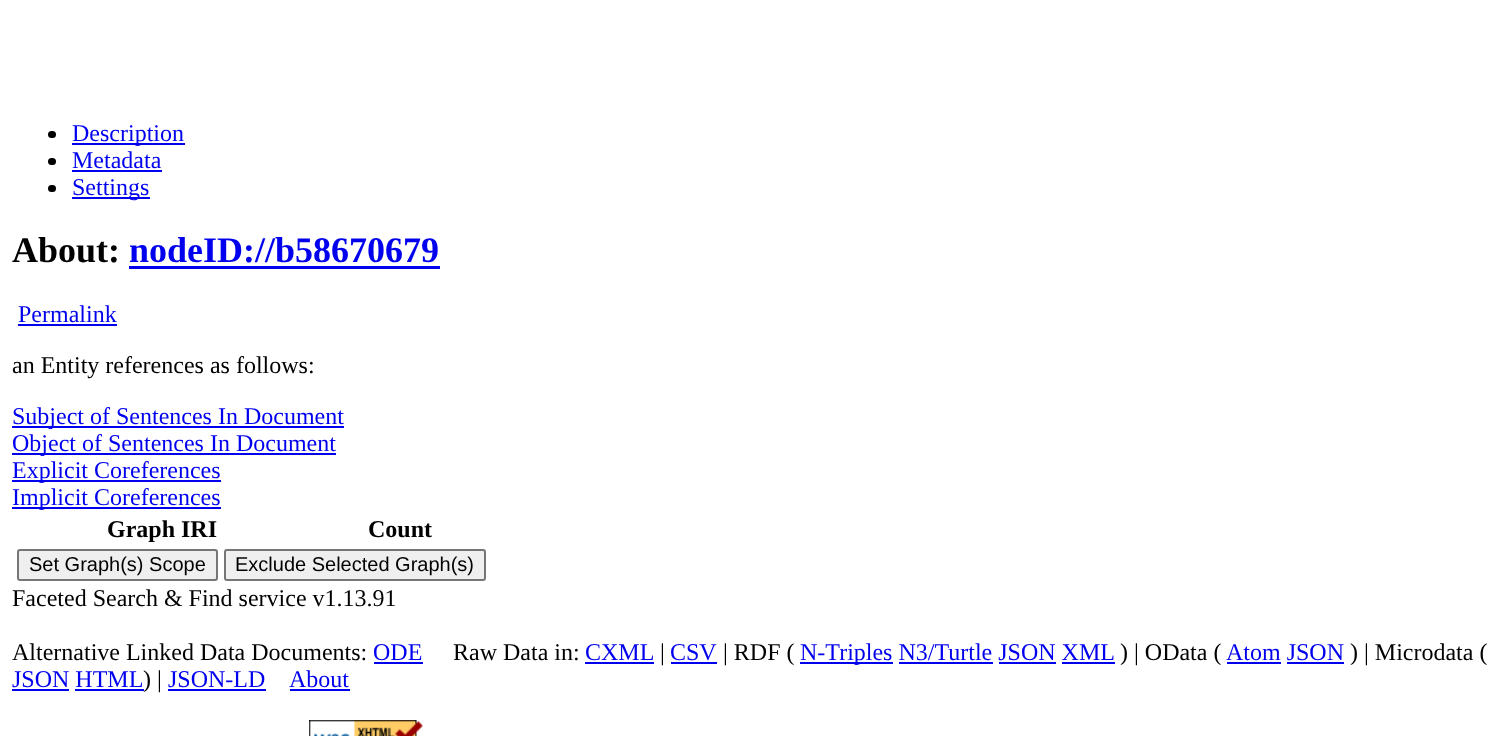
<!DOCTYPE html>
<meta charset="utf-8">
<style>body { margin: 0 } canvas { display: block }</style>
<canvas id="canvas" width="1503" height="736"></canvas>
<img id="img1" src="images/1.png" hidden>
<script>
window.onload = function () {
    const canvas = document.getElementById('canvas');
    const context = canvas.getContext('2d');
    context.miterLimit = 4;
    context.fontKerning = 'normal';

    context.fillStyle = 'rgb(255, 255, 255)';
    context.fillRect(0, 0, 1503, 736);
    context.fillStyle = 'rgb(0, 0, 0)';
    context.beginPath();
    context.roundRect(48, 131, 8, 7, 3.5);
    context.fill();
    context.fillStyle = 'rgb(0, 0, 238)';
    context.fillRect(72, 143, 113, 2);
    context.fillStyle = 'rgb(0, 0, 0)';
    context.beginPath();
    context.roundRect(48, 158, 8, 7, 3.5);
    context.fill();
    context.fillStyle = 'rgb(0, 0, 238)';
    context.fillRect(72, 170, 90, 2);
    context.fillStyle = 'rgb(0, 0, 0)';
    context.beginPath();
    context.roundRect(48, 185, 8, 7, 3.5);
    context.fill();
    context.fillStyle = 'rgb(0, 0, 238)';
    context.fillRect(72, 197, 78, 2);
    context.fillRect(129, 266, 311, 3);
    context.fillRect(18, 324, 99, 2);
    context.fillRect(12, 426, 332, 2);
    context.fillRect(12, 453, 324, 2);
    context.fillRect(12, 480, 209, 2);
    context.fillRect(12, 507, 209, 2);
    context.fillStyle = 'rgb(239, 239, 239)';
    context.beginPath();
    context.roundRect(18, 550, 199, 30, 2);
    context.fill();
    context.strokeStyle = 'rgb(118, 118, 118)';
    context.lineWidth = 2;
    context.stroke();
    context.beginPath();
    context.roundRect(225, 550, 260, 30, 2);
    context.fill();
    context.stroke();
    context.fillStyle = 'rgb(0, 0, 238)';
    context.fillRect(374, 662, 49, 2);
    context.fillRect(585, 662, 69, 2);
    context.fillRect(671, 662, 46, 2);
    context.fillRect(800, 662, 93, 2);
    context.fillRect(1227, 662, 54, 2);
    context.fillRect(899, 662, 94, 2);
    context.fillRect(999, 662, 57, 2);
    context.fillRect(1062, 662, 53, 2);
    context.fillRect(1287, 662, 57, 2);
    context.fillRect(12, 689, 57, 2);
    context.fillRect(168, 689, 98, 2);
    context.fillRect(290, 689, 60, 2);
    context.fillRect(75, 689, 69, 2);
    context.drawImage(document.getElementById('img1'), 309, 720, 114, 16);
    context.font = '24px Liberation Serif';
    context.fillText('Description', 72, 141);
    context.fillText('Metadata', 72, 168);
    context.fillText('Settings', 72, 195);
    context.font = 'bold 36px Liberation Serif';
    context.fillStyle = 'rgb(0, 0, 0)';
    context.fillText('About:', 12, 262);
    context.fillStyle = 'rgb(0, 0, 238)';
    context.fillText('nodeID://b58670679', 129, 262);
    context.font = '24px Liberation Serif';
    context.fillText('Permalink', 18, 322);
    context.fillStyle = 'rgb(0, 0, 0)';
    context.fillText('an Entity references as follows:', 12, 373);
    context.fillStyle = 'rgb(0, 0, 238)';
    context.fillText('Subject of Sentences In Document', 12, 424);
    context.fillText('Object of Sentences In Document', 12, 451);
    context.fillText('Explicit Coreferences', 12, 478);
    context.fillText('Implicit Coreferences', 12, 505);
    context.font = 'bold 24px Liberation Serif';
    context.fillStyle = 'rgb(0, 0, 0)';
    context.fillText('Graph IRI', 107, 537);
    context.fillText('Count', 368, 537);
    context.font = '20px Liberation Sans';
    context.fillText('Set Graph(s) Scope', 29, 571);
    context.fillText('Exclude Selected Graph(s)', 235, 571);
    context.font = '24px Liberation Serif';
    context.fillText('Faceted Search & Find service v1.13.91', 12, 606);
    context.fillText('Alternative Linked Data Documents:', 12, 660);
    context.fillStyle = 'rgb(0, 0, 238)';
    context.fillText('ODE', 373, 660);
    context.fillStyle = 'rgb(0, 0, 0)';
    context.fillText('Raw Data in:', 453, 660);
    context.fillStyle = 'rgb(0, 0, 238)';
    context.fillText('CXML', 585, 660);
    context.fillStyle = 'rgb(0, 0, 0)';
    context.fillText('|', 660, 660);
    context.fillStyle = 'rgb(0, 0, 238)';
    context.fillText('CSV', 670, 660);
    context.fillStyle = 'rgb(0, 0, 0)';
    context.fillText('| RDF (', 723, 660);
    context.fillStyle = 'rgb(0, 0, 238)';
    context.fillText('N-Triples N3/Turtle JSON XML', 800, 660);
    context.fillStyle = 'rgb(0, 0, 0)';
    context.fillText(') | OData (', 1120, 660);
    context.fillStyle = 'rgb(0, 0, 238)';
    context.fillText('Atom JSON', 1226, 660);
    context.fillStyle = 'rgb(0, 0, 0)';
    context.fillText(') | Microdata (', 1350, 660);
    context.fillStyle = 'rgb(0, 0, 238)';
    context.fillText('JSON HTML', 12, 687);
    context.fillStyle = 'rgb(0, 0, 0)';
    context.fillText(') |', 143, 687);
    context.fillStyle = 'rgb(0, 0, 238)';
    context.fillText('JSON-LD', 168, 687);
    context.fillText('About', 289, 687);
};
</script>
